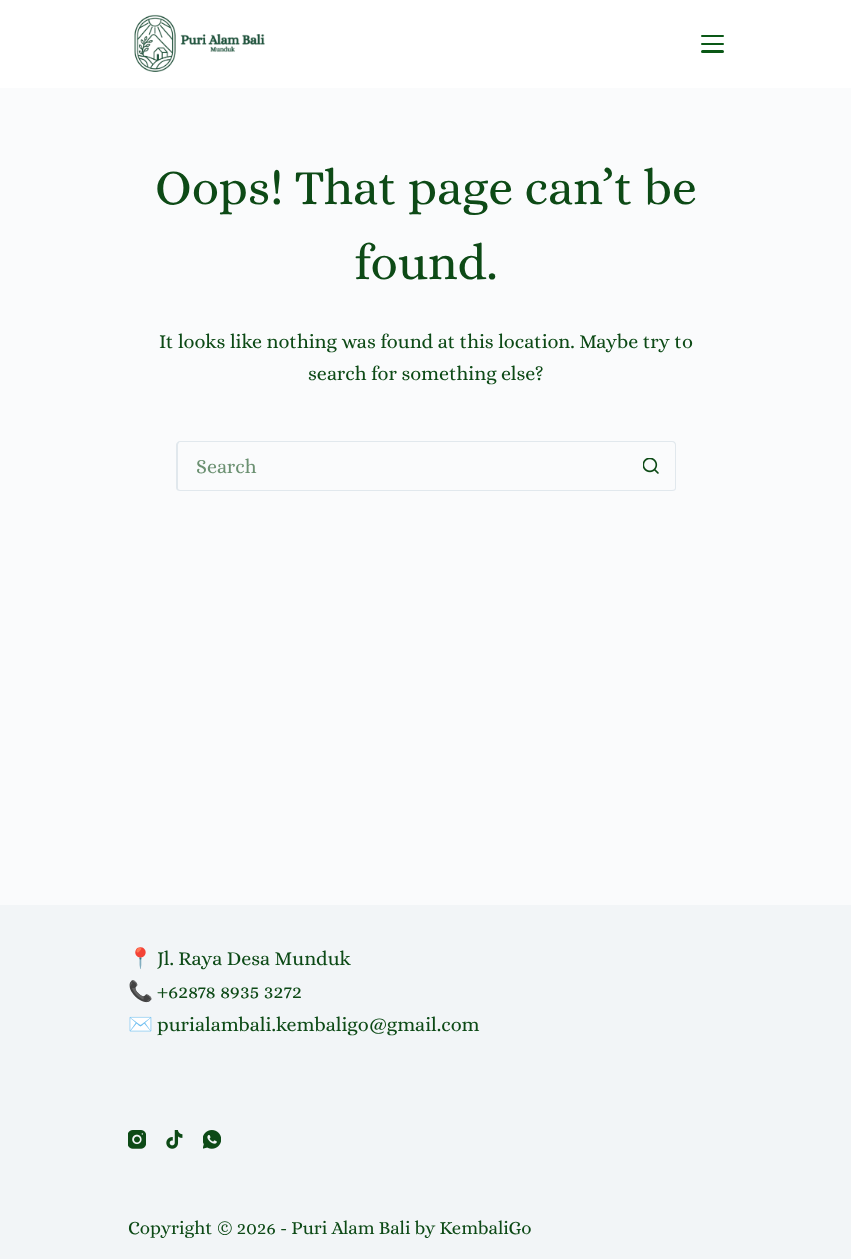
<!DOCTYPE html>
<meta charset="utf-8">
<style>body { margin: 0 } canvas { display: block }</style>
<canvas id="canvas" width="851" height="1259"></canvas>
<img id="img1" src="images/1.png" hidden>
<img id="img2" src="images/2.png" hidden>
<img id="img3" src="images/3.png" hidden>
<img id="img4" src="images/4.png" hidden>
<img id="img5" src="images/5.png" hidden>
<script>
window.onload = function () {
    const canvas = document.getElementById('canvas');
    const context = canvas.getContext('2d');
    context.miterLimit = 4;
    context.fontKerning = 'normal';

    context.fillStyle = 'rgb(250, 251, 252)';
    context.fillRect(0, 0, 851, 1259);
    context.fillStyle = 'rgb(255, 255, 255)';
    context.fillRect(0, 0, 851, 88);
    context.drawImage(document.getElementById('img1'), 134, 14, 131, 58);
    context.fillStyle = 'rgb(10, 88, 22)';
    context.beginPath();
    context.roundRect(701, 35, 23, 2, 1);
    context.fill();
    context.beginPath();
    context.roundRect(701, 43, 23, 2, 1);
    context.fill();
    context.beginPath();
    context.roundRect(701, 50, 23, 3, 1.5);
    context.fill();
    context.fillStyle = 'rgb(225, 232, 237)';
    context.beginPath();
    context.moveTo(180, 441);
    context.lineTo(626, 441);
    context.lineTo(626, 491);
    context.lineTo(180, 491);
    context.bezierCurveTo(178, 491, 176, 490, 176, 488);
    context.lineTo(176, 445);
    context.bezierCurveTo(176, 443, 178, 441, 180, 441);
    context.closePath();
    context.moveTo(180, 442);
    context.lineTo(626, 442);
    context.lineTo(626, 490);
    context.lineTo(180, 490);
    context.bezierCurveTo(179, 490, 178, 489, 178, 488);
    context.lineTo(178, 445);
    context.bezierCurveTo(178, 444, 179, 442, 180, 442);
    context.closePath();
    context.fill('evenodd');
    context.beginPath();
    context.moveTo(626, 441);
    context.lineTo(672, 441);
    context.bezierCurveTo(675, 441, 676, 443, 676, 445);
    context.lineTo(676, 488);
    context.bezierCurveTo(676, 490, 675, 491, 672, 491);
    context.lineTo(626, 491);
    context.closePath();
    context.moveTo(626, 442);
    context.lineTo(672, 442);
    context.bezierCurveTo(674, 442, 675, 444, 675, 445);
    context.lineTo(675, 488);
    context.bezierCurveTo(675, 489, 674, 490, 672, 490);
    context.lineTo(626, 490);
    context.closePath();
    context.fill('evenodd');
    context.drawImage(document.getElementById('img2'), 643, 458, 16, 16);
    context.fillStyle = 'rgb(242, 245, 247)';
    context.fillRect(0, 905, 851, 354);
    context.drawImage(document.getElementById('img3'), 128, 1130, 18, 19);
    context.drawImage(document.getElementById('img4'), 166, 1130, 17, 19);
    context.drawImage(document.getElementById('img5'), 203, 1130, 18, 19);
    context.font = '50px Alice';
    context.fillStyle = 'rgb(13, 74, 22)';
    context.fillText('Oops! That page can’t be', 155, 204);
    context.fillText('found.', 354, 279);
    context.font = '20px Alice';
    context.fillText('It looks like nothing was found at this location. Maybe try to', 159, 348);
    context.fillText('search for something else?', 308, 380);
    context.fillStyle = 'rgb(108, 145, 114)';
    context.fillText('Search', 196, 473);
    context.font = '20px Noto Color Emoji';
    context.fillStyle = 'rgb(13, 74, 22)';
    context.fillText('📍', 128, 965);
    context.font = '20px Alice';
    context.fillText('Jl. Raya Desa Munduk', 157, 965);
    context.font = '20px Noto Color Emoji';
    context.fillText('📞', 128, 998);
    context.font = '20px Alice';
    context.fillText('+62878 8935 3272', 157, 998);
    context.font = '20px Noto Color Emoji';
    context.fillText('✉️', 128, 1031);
    context.font = '20px Alice';
    context.fillText('purialambali.kembaligo@gmail.com', 157, 1031);
    context.font = '18.75px Alice';
    context.fillText('Copyright © 2026 - Puri Alam Bali by KembaliGo', 128, 1234);
};
</script>
